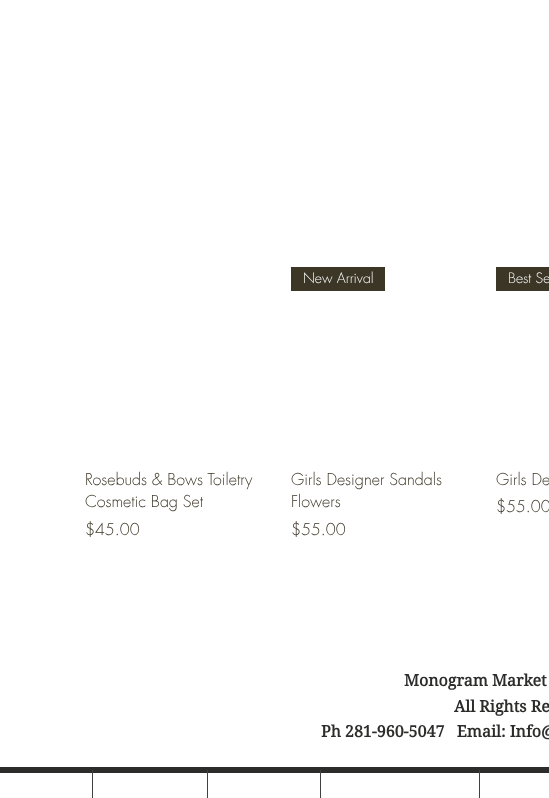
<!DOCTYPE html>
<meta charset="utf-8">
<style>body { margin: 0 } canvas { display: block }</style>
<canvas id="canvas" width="549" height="798"></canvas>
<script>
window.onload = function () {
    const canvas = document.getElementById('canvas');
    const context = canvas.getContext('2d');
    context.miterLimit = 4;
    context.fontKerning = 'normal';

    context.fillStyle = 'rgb(255, 255, 255)';
    context.fillRect(0, 0, 549, 798);
    context.fillStyle = 'rgb(59, 54, 38)';
    context.fillRect(291, 267, 94, 24);
    context.fillRect(496, 267, 53, 24);
    context.fillStyle = 'rgb(44, 44, 43)';
    context.fillRect(0, 767, 549, 6);
    context.fillStyle = 'rgb(65, 65, 65)';
    context.fillRect(92, 770, 1, 28);
    context.fillRect(207, 770, 1, 28);
    context.fillRect(320, 770, 1, 28);
    context.fillRect(479, 770, 1, 28);
    context.font = '300 16px futura';
    context.fillStyle = 'rgb(59, 54, 38)';
    context.fillText('Rosebuds & Bows Toiletry', 85, 485);
    context.fillText('Cosmetic Bag Set', 85, 507);
    context.fillText('$45.00', 85, 535);
    context.font = '300 14px futura';
    context.fillStyle = 'rgb(255, 255, 255)';
    context.fillText('New Arrival', 303, 283);
    context.font = '300 16px futura';
    context.fillStyle = 'rgb(59, 54, 38)';
    context.fillText('Girls Designer Sandals', 291, 485);
    context.fillText('Flowers', 291, 507);
    context.fillText('$55.00', 291, 535);
    context.font = '300 14px futura';
    context.fillStyle = 'rgb(255, 255, 255)';
    context.fillText('Best Se', 508, 283);
    context.font = '300 16px futura';
    context.fillStyle = 'rgb(59, 54, 38)';
    context.fillText('Girls De', 496, 485);
    context.fillText('$55.00', 496, 512);
    context.font = 'bold 16px "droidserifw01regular"';
    context.fillStyle = 'rgb(44, 44, 43)';
    context.fillText('Monogram Market', 404, 686);
    context.fillText('All Rights Re', 454, 712);
    context.fillText('Ph 281-960-5047   Email: Info@', 321, 737);
};
</script>
